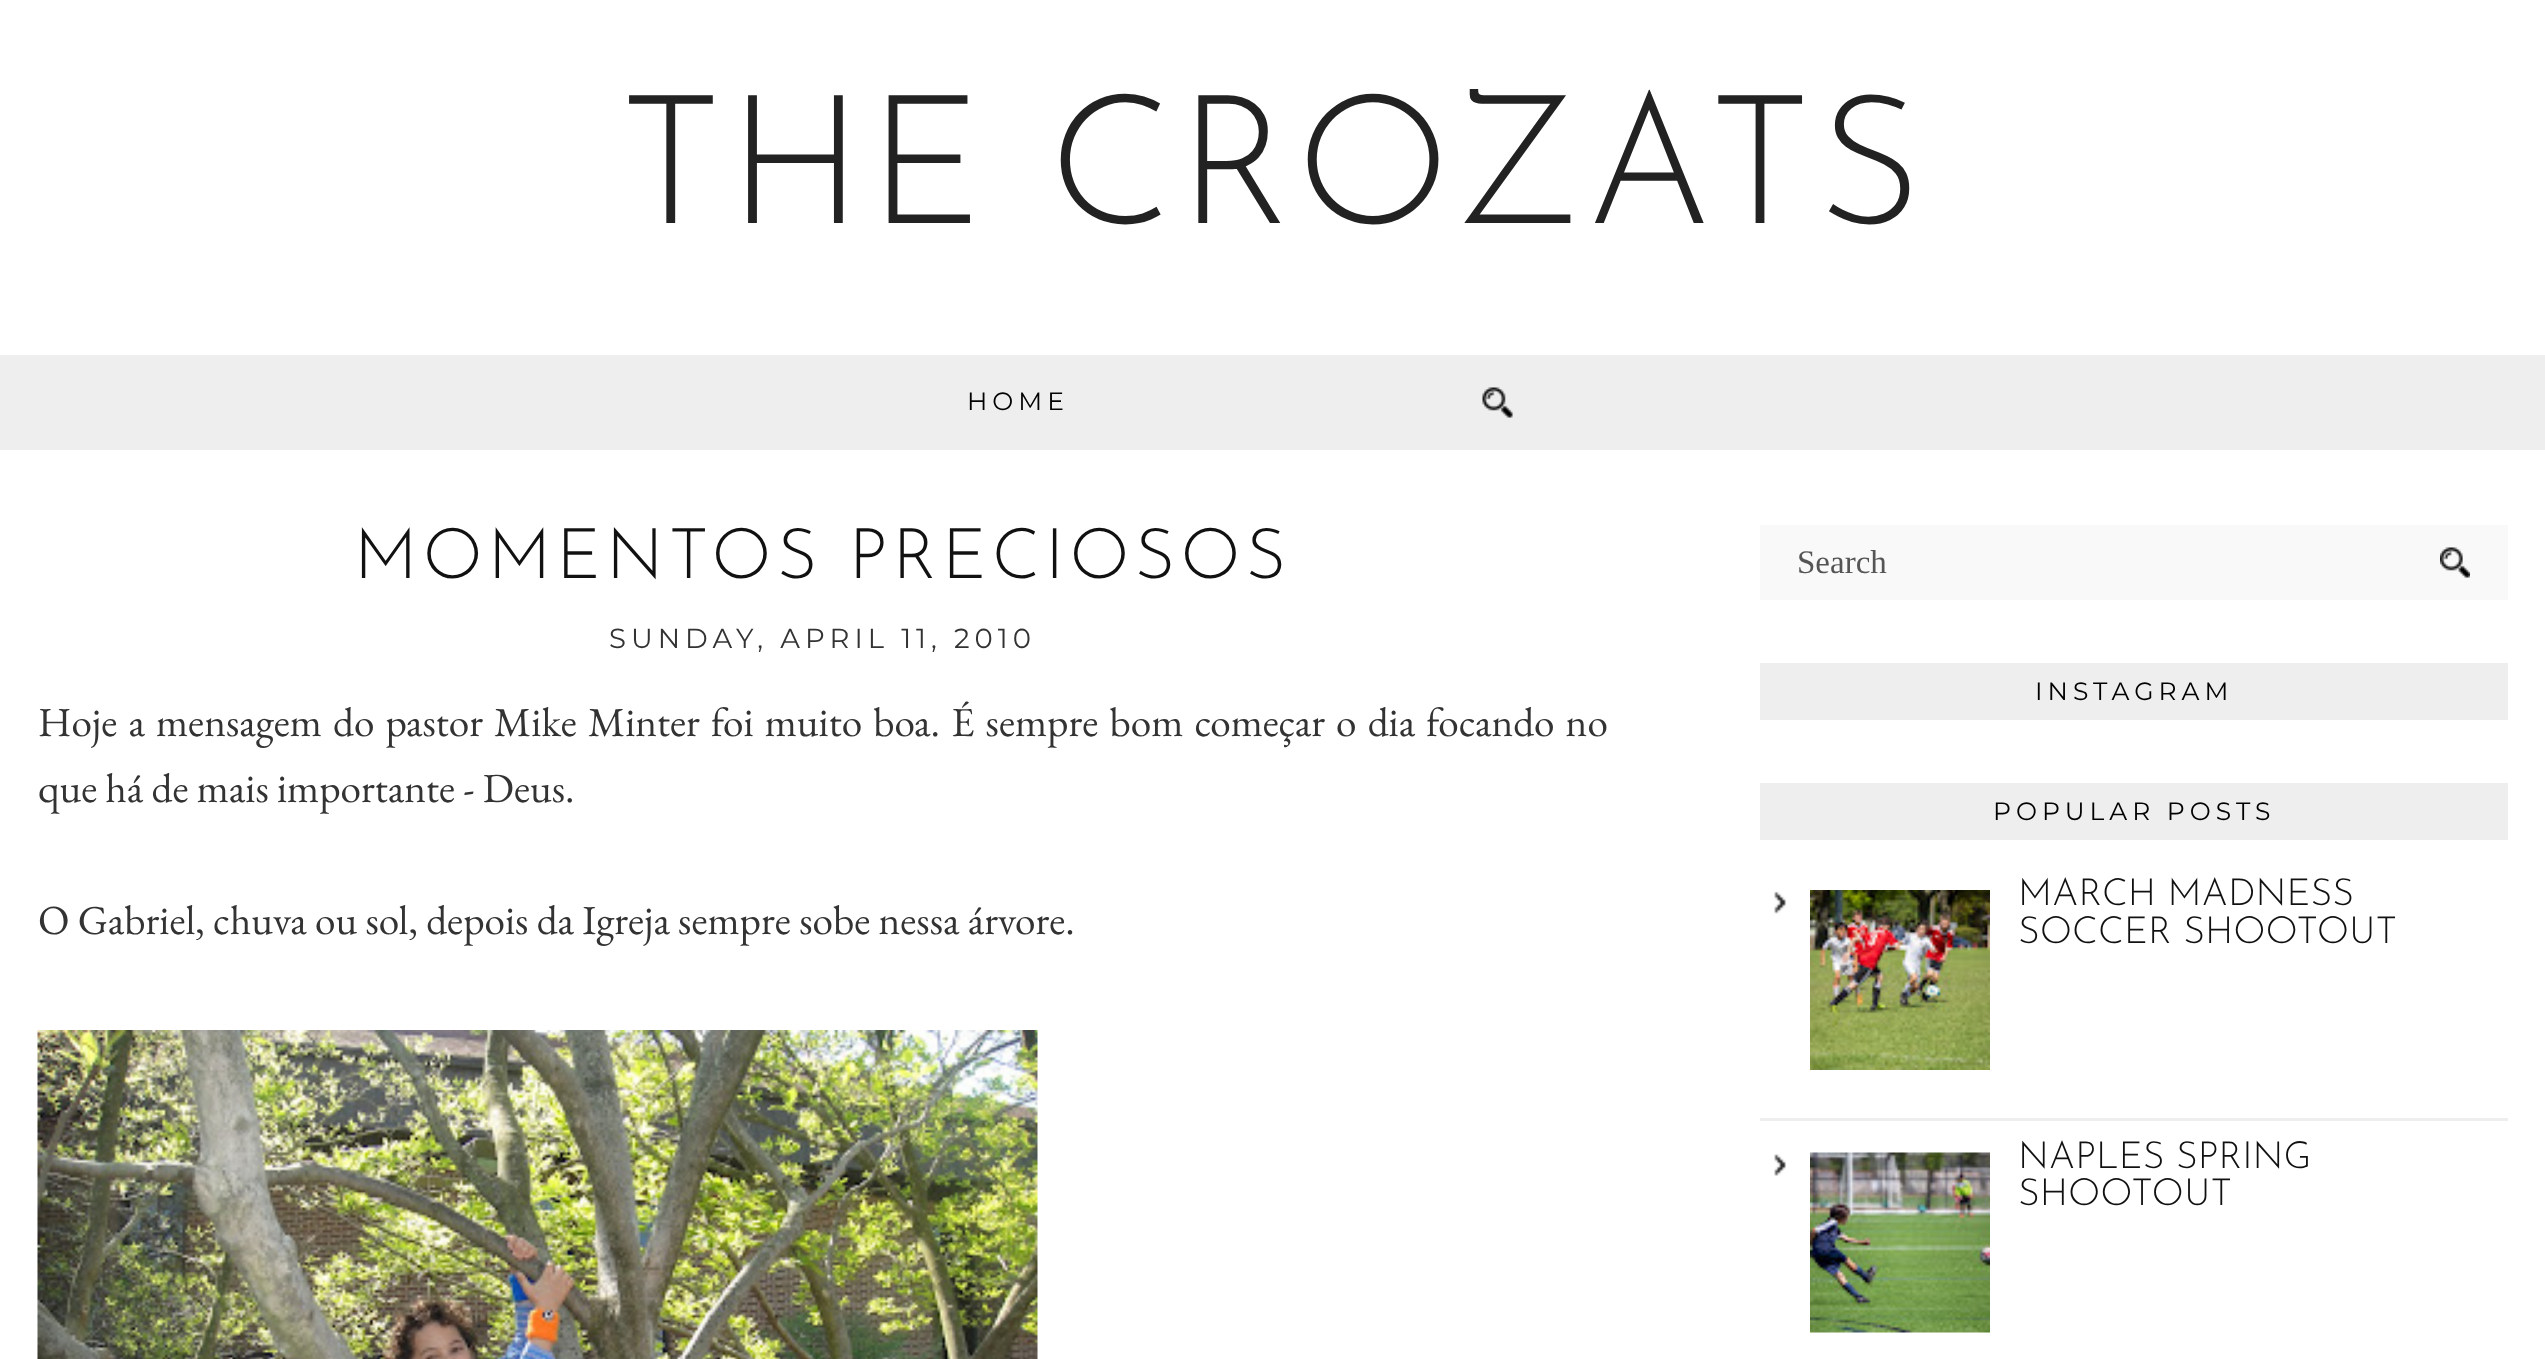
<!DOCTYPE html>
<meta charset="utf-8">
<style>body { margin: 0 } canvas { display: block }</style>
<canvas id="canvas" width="2545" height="1359"></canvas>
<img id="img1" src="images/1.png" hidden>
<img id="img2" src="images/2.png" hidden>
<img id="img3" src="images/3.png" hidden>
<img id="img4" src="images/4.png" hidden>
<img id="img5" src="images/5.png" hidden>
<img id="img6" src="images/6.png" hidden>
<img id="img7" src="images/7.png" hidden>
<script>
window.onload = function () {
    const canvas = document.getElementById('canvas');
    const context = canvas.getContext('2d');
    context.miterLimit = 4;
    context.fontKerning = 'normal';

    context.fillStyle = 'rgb(255, 255, 255)';
    context.fillRect(0, 0, 2545, 1359);
    context.fillStyle = 'rgb(238, 238, 238)';
    context.fillRect(0, 355, 2545, 95);
    context.drawImage(document.getElementById('img1'), 1482, 387, 31, 31);
    context.drawImage(document.getElementById('img2'), 37, 1030, 1001, 329);
    context.fillStyle = 'rgb(249, 249, 249)';
    context.fillRect(1760, 525, 748, 75);
    context.drawImage(document.getElementById('img3'), 2440, 547, 30, 31);
    context.fillStyle = 'rgb(238, 238, 238)';
    context.fillRect(1760, 663, 748, 57);
    context.fillRect(1760, 783, 748, 57);
    context.drawImage(document.getElementById('img4'), 1774, 891, 12, 23);
    context.fillRect(1760, 1118, 748, 3);
    context.drawImage(document.getElementById('img5'), 1810, 890, 180, 180);
    context.drawImage(document.getElementById('img6'), 1774, 1154, 12, 22);
    context.drawImage(document.getElementById('img7'), 1810, 1152, 180, 181);
    context.letterSpacing = '5px';
    context.font = '100 180px Josefin Sans';
    context.fillStyle = 'rgb(34, 34, 34)';
    context.fillText('THE CROZATS', 619, 223);
    context.font = '100 25px Montserrat';
    context.fillStyle = 'rgb(0, 0, 0)';
    context.fillText('HOME', 967, 410);
    context.font = '100 70px Josefin Sans';
    context.fillStyle = 'rgb(17, 17, 17)';
    context.fillText('MOMENTOS PRECIOSOS', 354, 578);
    context.font = '100 27.5px Montserrat';
    context.fillStyle = 'rgb(51, 51, 51)';
    context.fillText('SUNDAY, APRIL 11, 2010', 609, 648);
    context.letterSpacing = '0px';
    context.wordSpacing = '2.9px';
    context.font = '41.25px EB Garamond';
    context.fillText('Hoje a mensagem do pastor Mike Minter foi muito boa. É sempre bom começar o dia focando no', 38, 736);
    context.wordSpacing = '0px';
    context.fillText('que há de mais importante - Deus.', 38, 802);
    context.fillText('O Gabriel, chuva ou sol, depois da Igreja sempre sobe nessa árvore.', 38, 934);
    context.font = '33px Liberation Serif';
    context.fillStyle = 'rgb(85, 85, 85)';
    context.fillText('Search', 1797, 573);
    context.letterSpacing = '5px';
    context.font = '100 25px Montserrat';
    context.fillStyle = 'rgb(0, 0, 0)';
    context.fillText('INSTAGRAM', 2035, 700);
    context.fillText('POPULAR POSTS', 1993, 820);
    context.letterSpacing = '0px';
    context.font = '100 37.5px Josefin Sans';
    context.fillStyle = 'rgb(17, 17, 17)';
    context.fillText('MARCH MADNESS', 2018, 905);
    context.fillText('SOCCER SHOOTOUT', 2018, 943);
    context.fillText('NAPLES SPRING', 2018, 1168);
    context.fillText('SHOOTOUT', 2018, 1205);
};
</script>
